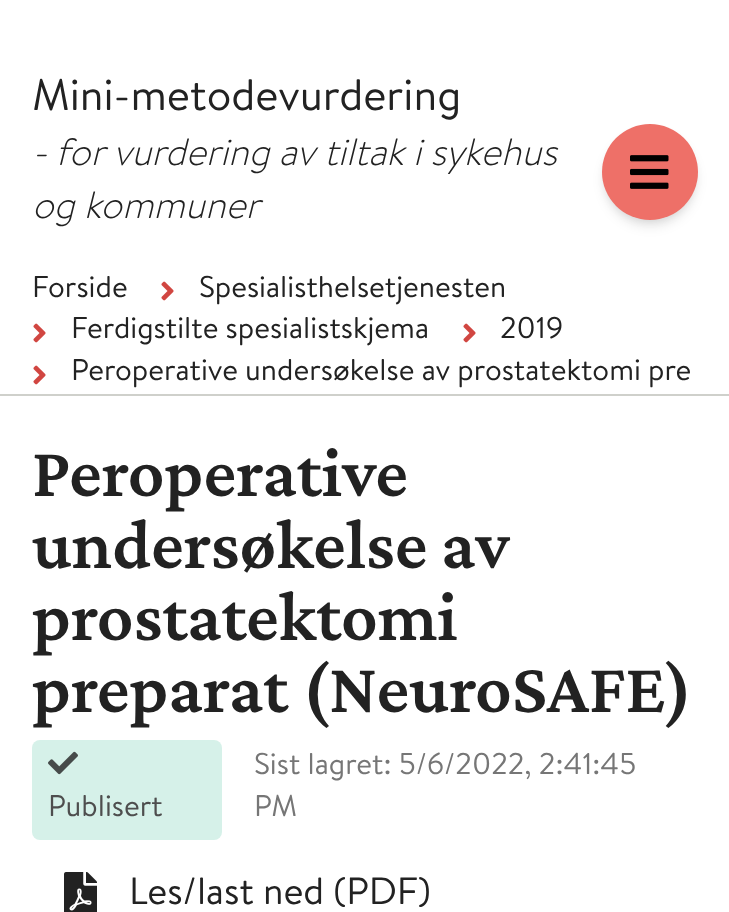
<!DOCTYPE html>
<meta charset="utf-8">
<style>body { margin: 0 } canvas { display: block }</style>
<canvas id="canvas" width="729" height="912"></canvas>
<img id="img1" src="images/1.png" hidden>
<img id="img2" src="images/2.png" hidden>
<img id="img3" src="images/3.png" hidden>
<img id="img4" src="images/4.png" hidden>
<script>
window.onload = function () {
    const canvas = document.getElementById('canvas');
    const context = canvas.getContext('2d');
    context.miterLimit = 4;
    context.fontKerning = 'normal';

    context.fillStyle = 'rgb(255, 255, 255)';
    context.fillRect(0, 0, 729, 912);
    context.fillStyle = 'rgba(0, 0, 0, 0.1)';
    context.filter = 'blur(4px)';
    context.beginPath();
    context.roundRect(606, 132, 88, 88, 44);
    context.fill();
    context.filter = 'none';
    context.filter = 'blur(6px)';
    context.beginPath();
    context.roundRect(604, 134, 92, 92, 46);
    context.fill();
    context.filter = 'none';
    context.fillStyle = 'rgb(238, 112, 104)';
    context.beginPath();
    context.arc(650, 172, 48, 0, 2 * Math.PI);
    context.fill();
    context.drawImage(document.getElementById('img1'), 630, 155, 39, 34);
    context.fillStyle = 'rgb(207, 208, 203)';
    context.fillRect(0, 394, 729, 2);
    context.drawImage(document.getElementById('img2'), 161, 281, 13, 20);
    context.drawImage(document.getElementById('img2'), 33, 323, 13, 20);
    context.drawImage(document.getElementById('img2'), 463, 323, 13, 20);
    context.drawImage(document.getElementById('img2'), 33, 365, 13, 20);
    context.fillStyle = 'rgb(214, 241, 233)';
    context.beginPath();
    context.roundRect(32, 740, 190, 100, 8);
    context.fill();
    context.drawImage(document.getElementById('img3'), 48, 751, 30, 24);
    context.drawImage(document.getElementById('img4'), 64, 872, 33, 40);
    context.font = '44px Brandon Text';
    context.fillStyle = 'rgb(34, 34, 34)';
    context.fillText('Mini-metodevurdering', 32, 110);
    context.font = 'italic 300 38px Brandon Text';
    context.fillText('- for vurdering av tiltak i sykehus', 32, 165);
    context.fillText('og kommuner', 32, 218);
    context.font = '30px Brandon Text';
    context.fillText('Forside', 32, 297);
    context.fillText('Spesialisthelsetjenesten', 199, 297);
    context.fillText('Ferdigstilte spesialistskjema', 71, 338);
    context.fillText('2019', 500, 338);
    context.fillText('Peroperative undersøkelse av prostatektomi pre', 71, 380);
    context.font = '600 72px Crimson Pro';
    context.fillText('Peroperative', 32, 496);
    context.fillText('undersøkelse av', 32, 568);
    context.fillText('prostatektomi', 32, 640);
    context.fillText('preparat (NeuroSAFE)', 32, 712);
    context.font = '30px Brandon Text';
    context.fillStyle = 'rgb(78, 78, 78)';
    context.fillText('Publisert', 48, 816);
    context.fillStyle = 'rgb(118, 118, 118)';
    context.fillText('Sist lagret: 5/6/2022, 2:41:45', 254, 774);
    context.fillText('PM', 254, 816);
    context.font = '38px Brandon Text';
    context.fillStyle = 'rgb(34, 34, 34)';
    context.fillText('Les/last ned (PDF)', 129, 904);
};
</script>
